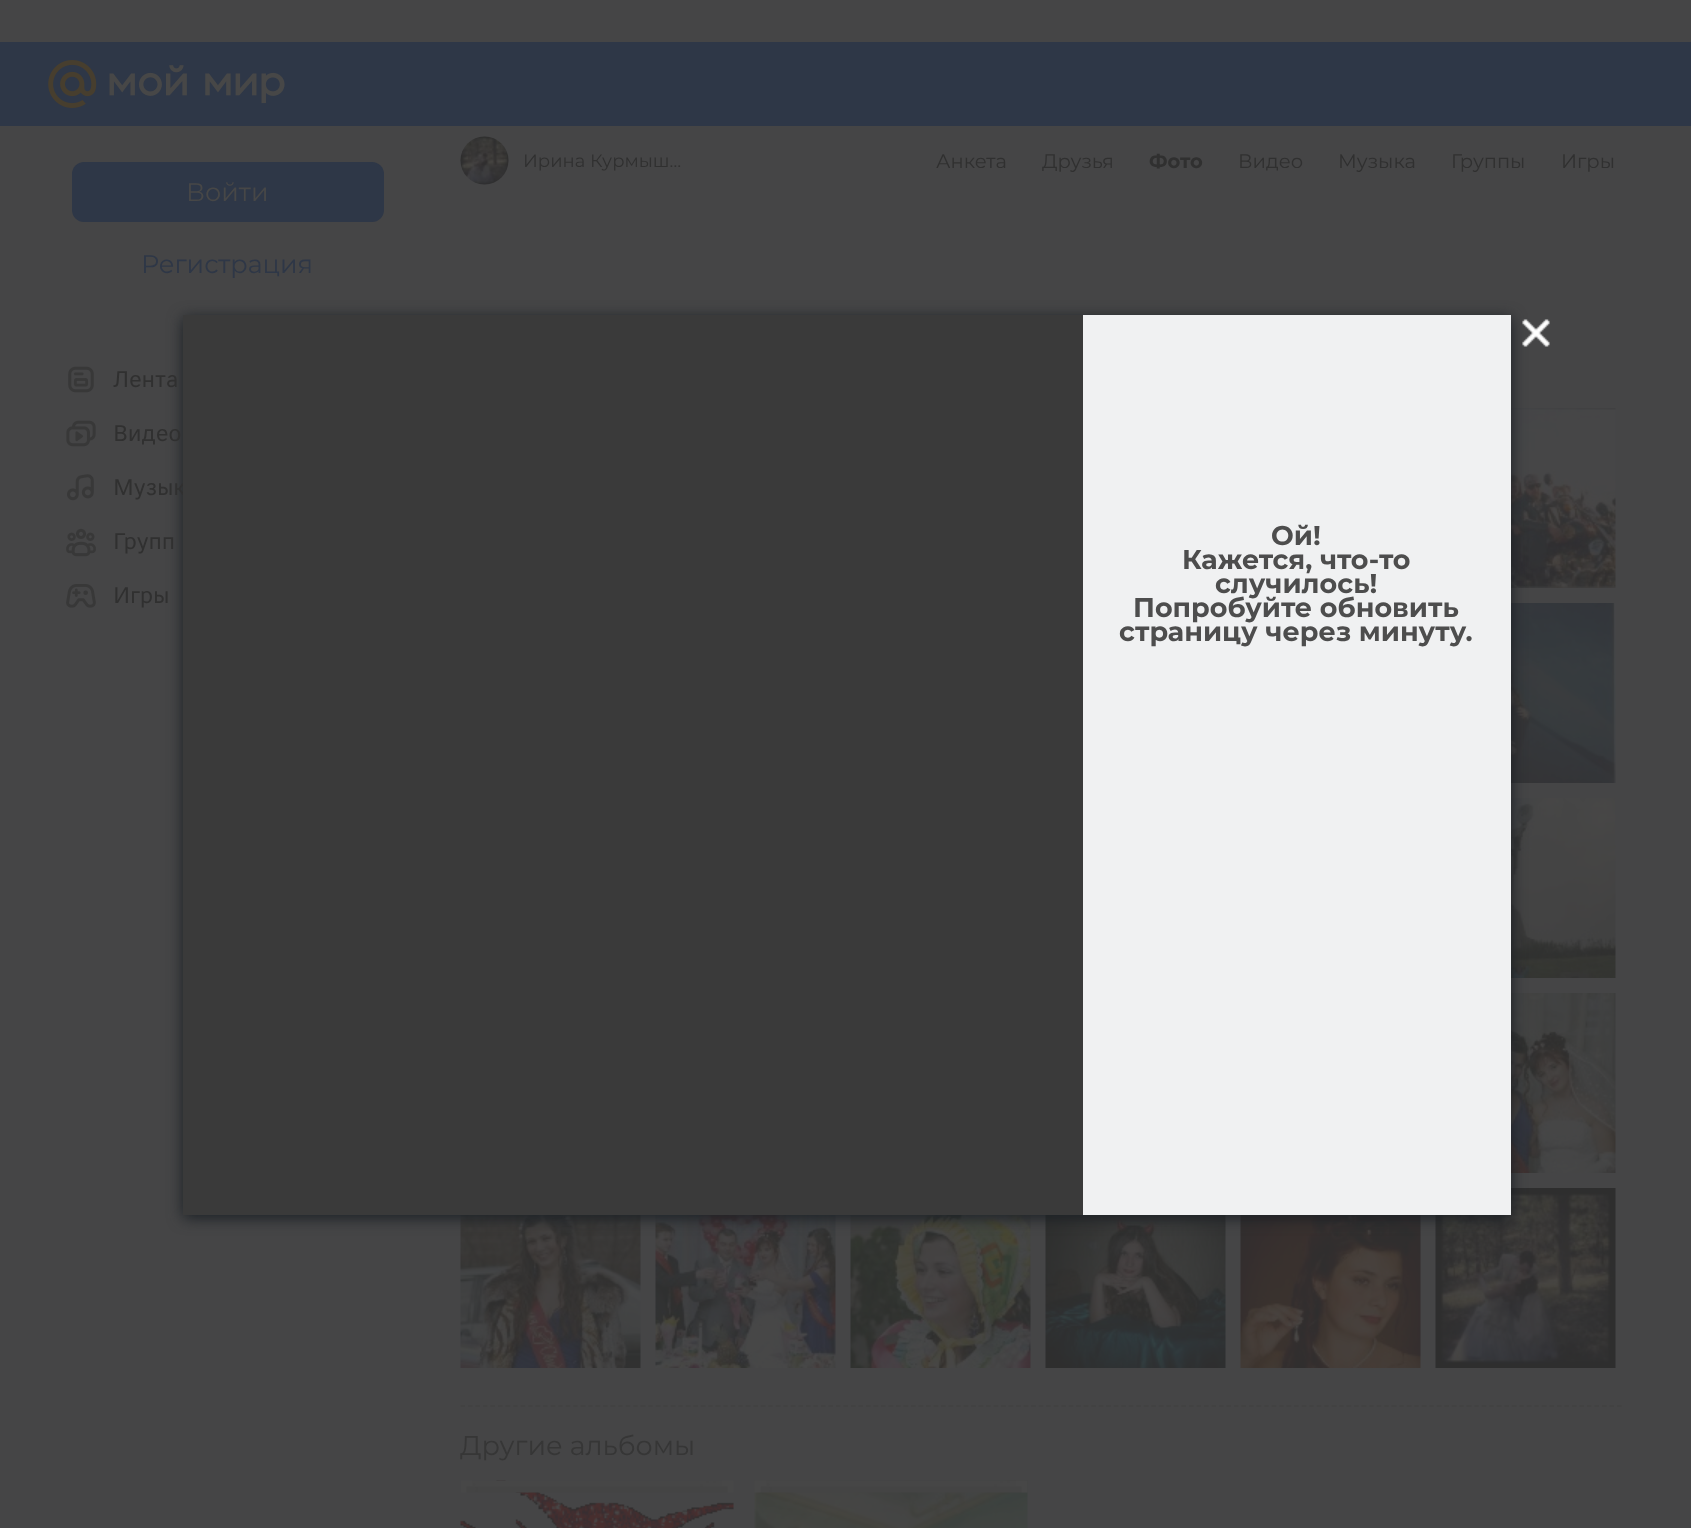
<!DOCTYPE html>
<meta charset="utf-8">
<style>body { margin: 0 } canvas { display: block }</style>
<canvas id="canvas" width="1691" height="1528"></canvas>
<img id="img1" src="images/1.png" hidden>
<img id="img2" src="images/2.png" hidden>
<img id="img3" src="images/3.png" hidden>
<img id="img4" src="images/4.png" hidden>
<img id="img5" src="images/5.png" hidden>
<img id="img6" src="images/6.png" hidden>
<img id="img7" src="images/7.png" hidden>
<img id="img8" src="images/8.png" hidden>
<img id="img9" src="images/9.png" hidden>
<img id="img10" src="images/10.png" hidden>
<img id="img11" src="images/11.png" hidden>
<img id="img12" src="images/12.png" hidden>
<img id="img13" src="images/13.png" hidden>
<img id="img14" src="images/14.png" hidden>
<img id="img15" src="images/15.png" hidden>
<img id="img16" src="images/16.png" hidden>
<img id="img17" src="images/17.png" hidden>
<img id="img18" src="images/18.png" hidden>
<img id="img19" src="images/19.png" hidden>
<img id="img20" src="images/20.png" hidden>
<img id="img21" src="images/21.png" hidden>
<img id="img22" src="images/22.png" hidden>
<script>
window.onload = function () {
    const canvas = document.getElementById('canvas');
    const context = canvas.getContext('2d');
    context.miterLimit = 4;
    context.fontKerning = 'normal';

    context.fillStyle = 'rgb(69, 69, 70)';
    context.fillRect(0, 0, 1691, 1528);
    context.fillStyle = 'rgb(46, 55, 71)';
    context.fillRect(0, 42, 1691, 84);
    context.drawImage(document.getElementById('img1'), 48, 60, 237, 48);
    context.beginPath();
    context.roundRect(72, 162, 312, 60, 12);
    context.fill();
    context.drawImage(document.getElementById('img2'), 68, 366, 26, 27);
    context.drawImage(document.getElementById('img3'), 66, 420, 30, 27);
    context.drawImage(document.getElementById('img4'), 67, 474, 27, 27);
    context.drawImage(document.getElementById('img5'), 66, 528, 30, 29);
    context.drawImage(document.getElementById('img6'), 66, 584, 30, 24);
    context.drawImage(document.getElementById('img7'), 460, 136, 49, 49);
    context.drawImage(document.getElementById('img8'), 1511, 408, 105, 180);
    context.drawImage(document.getElementById('img9'), 1511, 603, 105, 180);
    context.drawImage(document.getElementById('img10'), 1511, 798, 105, 180);
    context.drawImage(document.getElementById('img11'), 1511, 993, 105, 180);
    context.drawImage(document.getElementById('img12'), 460, 1215, 181, 153);
    context.drawImage(document.getElementById('img13'), 655, 1215, 181, 153);
    context.drawImage(document.getElementById('img14'), 850, 1215, 181, 153);
    context.drawImage(document.getElementById('img15'), 1045, 1215, 181, 153);
    context.drawImage(document.getElementById('img16'), 1240, 1215, 181, 153);
    context.drawImage(document.getElementById('img17'), 1435, 1188, 181, 180);
    context.beginPath();
    context.moveTo(460.5, 1406);
    context.lineTo(1623, 1406);
    context.strokeStyle = 'rgb(66, 66, 66)';
    context.lineWidth = 1.5;
    context.setLineDash([4.5, 3.01]);
    context.stroke();
    context.drawImage(document.getElementById('img18'), 460, 1480, 274, 48);
    context.drawImage(document.getElementById('img19'), 461, 1480, 273, 13);
    context.drawImage(document.getElementById('img20'), 754, 1480, 274, 48);
    context.drawImage(document.getElementById('img21'), 754, 1480, 274, 13);
    context.fillStyle = 'rgb(26, 31, 36)';
    context.filter = 'blur(7.5px)';
    context.beginPath();
    context.rect(183, 318, 1328, 900);
    context.fill();
    context.filter = 'none';
    context.drawImage(document.getElementById('img22'), 1522, 319, 28, 28);
    context.fillStyle = 'rgb(240, 241, 242)';
    context.fillRect(1083, 315, 428, 900);
    context.font = '25.5px Montserrat';
    context.fillStyle = 'rgb(71, 71, 71)';
    context.fillText('Войти', 186, 201);
    context.fillStyle = 'rgb(46, 55, 71)';
    context.fillText('Регистрация', 141, 273);
    context.letterSpacing = '-0.25px';
    context.font = '22.5px "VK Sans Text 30"';
    context.fillStyle = 'rgb(48, 48, 48)';
    context.fillText('Лента', 113, 387);
    context.fillText('Видео', 113, 441);
    context.fillText('Музык', 113, 495);
    context.fillText('Групп', 113, 549);
    context.fillText('Игры', 113, 603);
    context.letterSpacing = '0px';
    context.font = '18px Montserrat';
    context.fillText('Ирина Курмыш…', 523, 167);
    context.font = '19.5px Montserrat';
    context.fillText('Анкета', 936, 168);
    context.fillText('Друзья', 1042, 168);
    context.font = 'bold 19.5px Montserrat';
    context.fillText('Фото', 1149, 168);
    context.font = '19.5px Montserrat';
    context.fillText('Видео', 1238, 168);
    context.fillText('Музыка', 1338, 168);
    context.fillText('Группы', 1451, 168);
    context.fillText('Игры', 1561, 168);
    context.font = '27px Montserrat';
    context.fillStyle = 'rgb(54, 54, 54)';
    context.fillText('Другие альбомы', 460, 1455);
    context.fillStyle = 'rgb(58, 58, 58)';
    context.fillRect(183, 315, 900, 900);
    context.font = 'bold 27px Montserrat';
    context.fillStyle = 'rgb(77, 77, 77)';
    context.fillText('Ой!', 1271, 545);
    context.fillText('Кажется, что-то', 1182, 569);
    context.fillText('случилось!', 1215, 593);
    context.fillText('Попробуйте обновить', 1133, 617);
    context.fillText('страницу через минуту.', 1119, 641);
};
</script>
